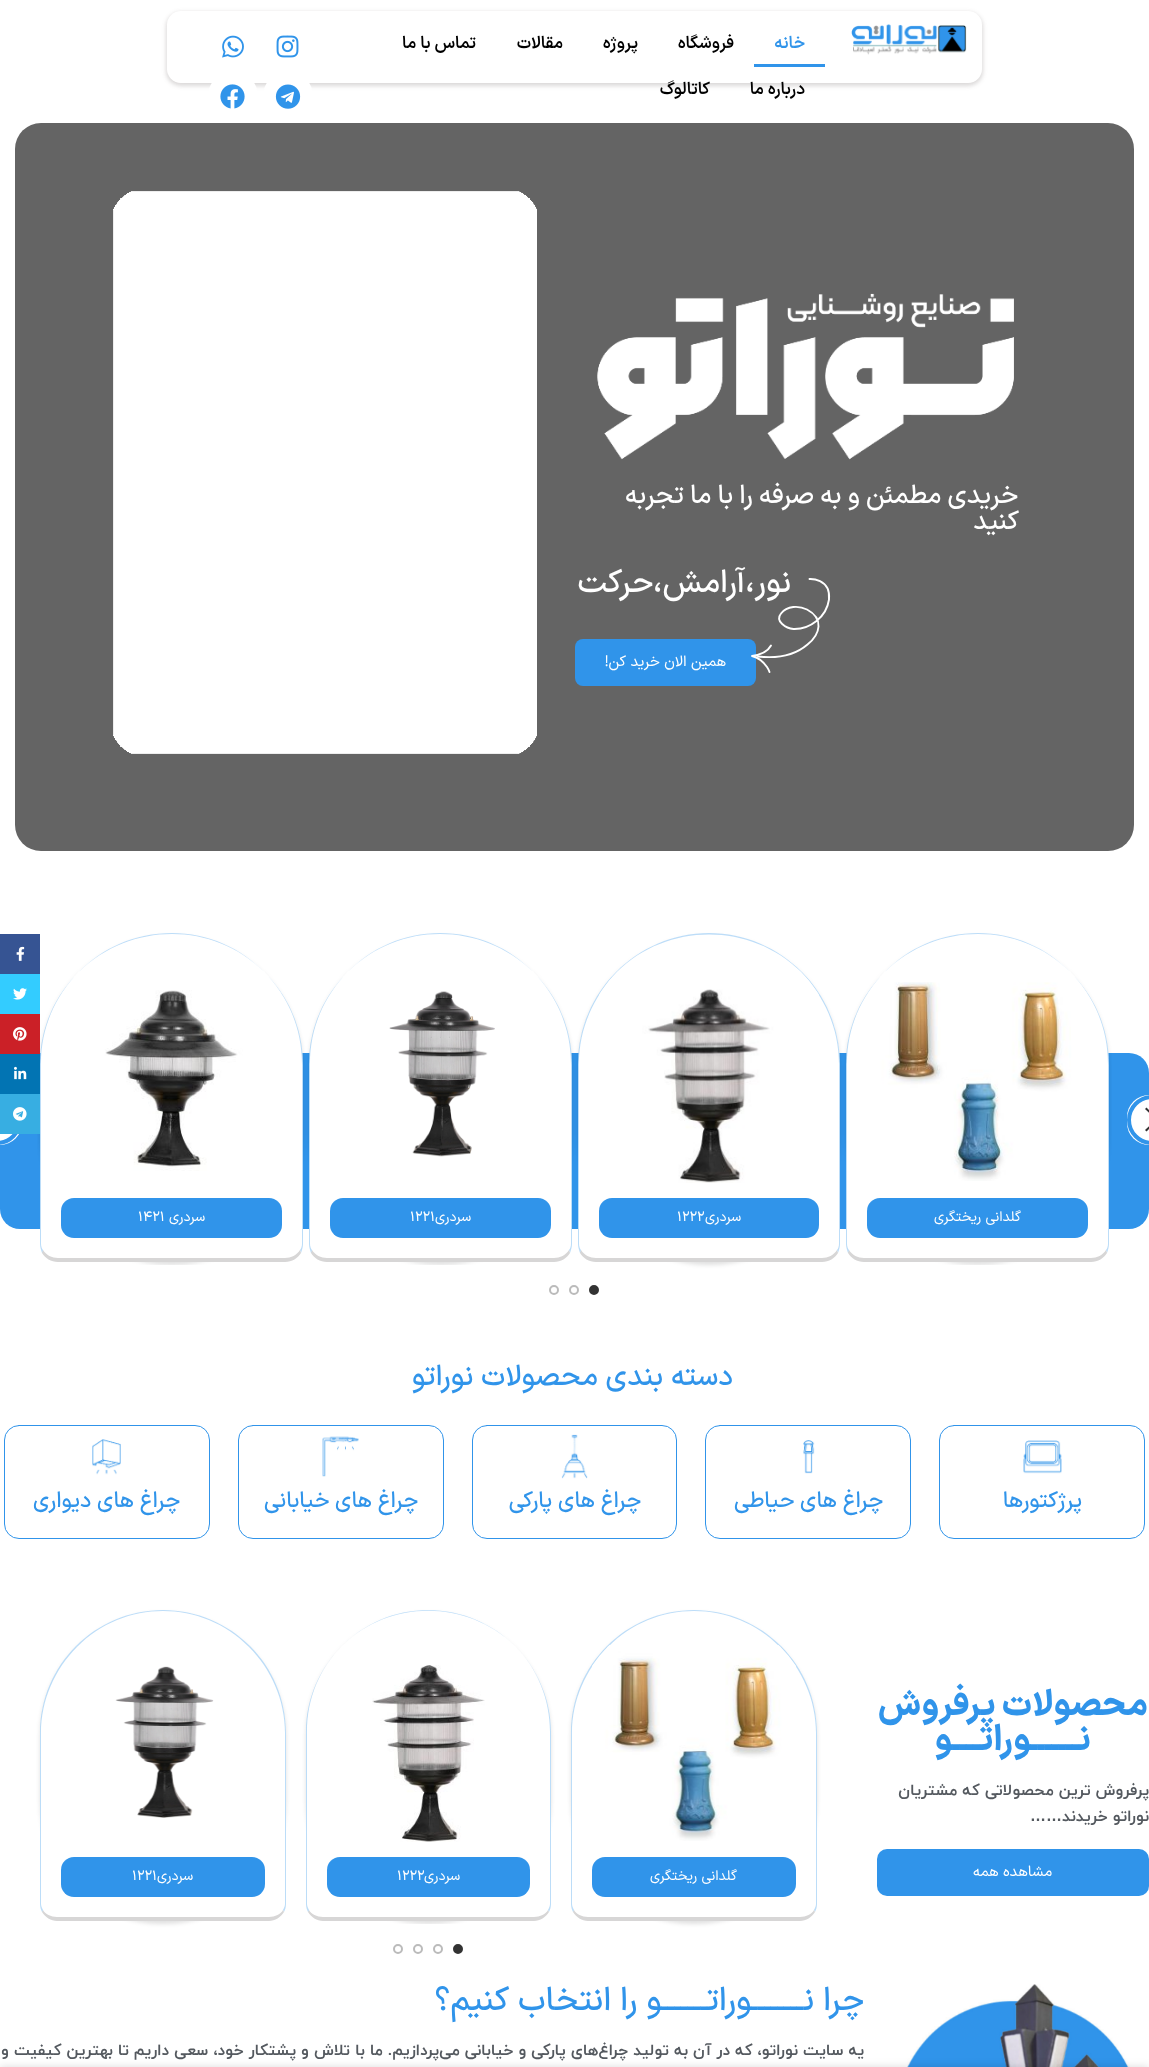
<!DOCTYPE html>
<meta charset="utf-8">
<style>body { margin: 0 } canvas { display: block }</style>
<canvas id="canvas" width="1149" height="2067"></canvas>
<img id="img1" src="images/1.png" hidden>
<img id="img2" src="images/2.png" hidden>
<img id="img3" src="images/3.png" hidden>
<img id="img4" src="images/4.png" hidden>
<img id="img5" src="images/5.png" hidden>
<img id="img6" src="images/6.png" hidden>
<img id="img7" src="images/7.png" hidden>
<img id="img8" src="images/8.png" hidden>
<img id="img9" src="images/9.png" hidden>
<img id="img10" src="images/10.png" hidden>
<img id="img11" src="images/11.png" hidden>
<img id="img12" src="images/12.png" hidden>
<img id="img13" src="images/13.png" hidden>
<img id="img14" src="images/14.png" hidden>
<img id="img15" src="images/15.png" hidden>
<img id="img16" src="images/16.png" hidden>
<img id="img17" src="images/17.png" hidden>
<img id="img18" src="images/18.png" hidden>
<img id="img19" src="images/19.png" hidden>
<img id="img20" src="images/20.png" hidden>
<img id="img21" src="images/21.png" hidden>
<img id="img22" src="images/22.png" hidden>
<img id="img23" src="images/23.png" hidden>
<img id="img24" src="images/24.png" hidden>
<img id="img25" src="images/25.png" hidden>
<script>
window.onload = function () {
    const canvas = document.getElementById('canvas');
    const context = canvas.getContext('2d');
    context.miterLimit = 4;
    context.fontKerning = 'normal';

    context.fillStyle = 'rgb(255, 255, 255)';
    context.fillRect(0, 0, 1149, 2067);
    context.fillStyle = 'rgba(77, 65, 65, 0.2)';
    context.filter = 'blur(2px)';
    context.beginPath();
    context.roundRect(166, 12, 817, 74, 15);
    context.fill();
    context.filter = 'none';
    context.fillStyle = 'rgb(255, 255, 255)';
    context.beginPath();
    context.roundRect(167, 11, 815, 72, 14);
    context.fill();
    context.drawImage(document.getElementById('img1'), 851, 24, 116, 31);
    context.fillStyle = 'rgb(48, 148, 234)';
    context.fillRect(754, 64, 71, 3);
    context.drawImage(document.getElementById('img2'), 276, 35, 23, 23);
    context.drawImage(document.getElementById('img3'), 222, 35, 22, 23);
    context.fillStyle = 'rgb(255, 255, 255)';
    context.beginPath();
    context.arc(288, 96, 25, 0, 2 * Math.PI);
    context.fill();
    context.drawImage(document.getElementById('img4'), 275, 84, 26, 25);
    context.beginPath();
    context.arc(233, 96, 25, 0, 2 * Math.PI);
    context.fill();
    context.drawImage(document.getElementById('img5'), 220, 84, 25, 25);
    context.drawImage(document.getElementById('img6'), 15, 123, 1119, 728);
    context.drawImage(document.getElementById('img7'), 597, 293, 417, 167);
    context.beginPath();
    context.moveTo(758, 656.5);
    context.bezierCurveTo(775.5, 658.5, 793.5, 656.5, 807.5, 644.5);
    context.bezierCurveTo(820.5, 634, 824, 618.5, 807, 609.5);
    context.bezierCurveTo(799, 605.5, 787, 605.5, 781, 613.5);
    context.bezierCurveTo(774.5, 621.5, 786.5, 628.5, 793.5, 629);
    context.bezierCurveTo(810, 629.5, 826.5, 617, 829, 599.5);
    context.bezierCurveTo(831, 578, 809.5, 579, 809.5, 579);
    context.strokeStyle = 'rgb(255, 255, 255)';
    context.lineWidth = 1.9;
    context.lineCap = 'round';
    context.lineJoin = 'round';
    context.stroke();
    context.fillStyle = 'rgb(48, 148, 234)';
    context.beginPath();
    context.roundRect(575, 639, 181, 47, 8);
    context.fill();
    context.beginPath();
    context.moveTo(769.5, 672);
    context.bezierCurveTo(769, 670.5, 768, 668.5, 767, 667);
    context.bezierCurveTo(763.5, 662, 758, 657.5, 752, 656);
    context.bezierCurveTo(759, 655, 767.5, 652, 771, 645.5);
    context.stroke();
    context.beginPath();
    context.roundRect(0, 1053, 1149, 176, 20);
    context.fill();
    context.fillStyle = 'rgb(255, 255, 255)';
    context.beginPath();
    context.roundRect(1127, 1095, 22, 50, [25, 0, 0, 25]);
    context.fill();
    context.beginPath();
    context.arc(1152, 1120, 23, 0, 2 * Math.PI);
    context.strokeStyle = 'rgb(48, 148, 234)';
    context.lineWidth = 4;
    context.stroke();
    context.fillStyle = 'rgb(51, 51, 51)';
    context.beginPath();
    context.moveTo(1146.5, 1107.5);
    context.lineTo(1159, 1119.5);
    context.lineTo(1146.5, 1131.5);
    context.lineTo(1145, 1130);
    context.lineTo(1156, 1119.5);
    context.lineTo(1145, 1109);
    context.closePath();
    context.fill();
    context.fillStyle = 'rgb(255, 255, 255)';
    context.beginPath();
    context.roundRect(0, 1095, 22, 50, [0, 25, 25, 0]);
    context.fill();
    context.beginPath();
    context.arc(-3, 1120, 23, 0, 2 * Math.PI);
    context.stroke();
    context.save();
    context.beginPath();
    context.rect(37, 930, 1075, 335);
    context.clip();
    context.fillStyle = 'rgba(0, 0, 0, 0.12)';
    context.filter = 'blur(2px)';
    context.beginPath();
    context.roundRect(846, 936, 263, 329, 131.5);
    context.fill();
    context.filter = 'none';
    context.restore();
    context.beginPath();
    context.roundRect(846, 933, 263, 329, [131.5, 131.5, 18, 18]);
    context.fill();
    context.fillStyle = 'rgb(189, 221, 248)';
    context.beginPath();
    context.moveTo(978, 933);
    context.bezierCurveTo(941, 933, 908, 948, 885, 972);
    context.bezierCurveTo(936, 922, 1019, 921, 1070, 972);
    context.bezierCurveTo(1047, 948, 1014, 933, 978, 933);
    context.closePath();
    context.fill();
    context.fillStyle = 'rgba(48, 148, 234, 0.32)';
    context.beginPath();
    context.moveTo(1109, 1244);
    context.lineTo(1109, 1064);
    context.bezierCurveTo(1109, 1028, 1094, 995, 1070, 972);
    context.bezierCurveTo(1094, 996, 1108, 1028, 1108, 1064);
    context.lineTo(1108, 1244);
    context.bezierCurveTo(1108, 1246, 1107, 1249, 1106, 1250);
    context.lineTo(1107, 1253);
    context.bezierCurveTo(1108, 1250, 1109, 1247, 1109, 1244);
    context.closePath();
    context.fill();
    context.fillStyle = 'rgb(215, 214, 214)';
    context.beginPath();
    context.moveTo(864, 1262);
    context.lineTo(1091, 1262);
    context.bezierCurveTo(1098, 1262, 1104, 1258, 1107, 1253);
    context.lineTo(1106, 1250);
    context.bezierCurveTo(1103, 1255, 1097, 1258, 1091, 1258);
    context.lineTo(864, 1258);
    context.bezierCurveTo(858, 1258, 852, 1255, 849, 1250);
    context.lineTo(848, 1253);
    context.bezierCurveTo(851, 1258, 857, 1262, 864, 1262);
    context.closePath();
    context.fill();
    context.fillStyle = 'rgba(48, 148, 234, 0.32)';
    context.beginPath();
    context.moveTo(846, 1064);
    context.lineTo(846, 1244);
    context.bezierCurveTo(846, 1247, 847, 1250, 848, 1253);
    context.lineTo(849, 1250);
    context.bezierCurveTo(848, 1249, 847, 1246, 847, 1244);
    context.lineTo(847, 1064);
    context.bezierCurveTo(847, 1028, 861, 996, 885, 972);
    context.bezierCurveTo(861, 995, 846, 1028, 846, 1064);
    context.closePath();
    context.fill();
    context.drawImage(document.getElementById('img8'), 868, 982, 219, 199);
    context.fillStyle = 'rgb(48, 148, 234)';
    context.beginPath();
    context.roundRect(867, 1198, 221, 40, 13);
    context.fill();
    context.fillStyle = 'rgba(0, 0, 0, 0.12)';
    context.filter = 'blur(2px)';
    context.beginPath();
    context.roundRect(578, 936, 262, 329, 131);
    context.fill();
    context.filter = 'none';
    context.fillStyle = 'rgb(255, 255, 255)';
    context.beginPath();
    context.roundRect(578, 933, 262, 329, [131, 131, 18, 18]);
    context.fill();
    context.fillStyle = 'rgb(189, 221, 248)';
    context.beginPath();
    context.moveTo(709, 933);
    context.bezierCurveTo(673, 933, 640, 948, 616, 972);
    context.lineTo(617, 972);
    context.bezierCurveTo(667, 922, 751, 922, 801, 972);
    context.lineTo(802, 972);
    context.bezierCurveTo(778, 948, 745, 933, 709, 933);
    context.closePath();
    context.fill();
    context.fillStyle = 'rgba(48, 148, 234, 0.32)';
    context.beginPath();
    context.moveTo(840, 1244);
    context.lineTo(840, 1064);
    context.bezierCurveTo(840, 1028, 825, 995, 802, 972);
    context.lineTo(801, 972);
    context.bezierCurveTo(824, 996, 839, 1028, 839, 1064);
    context.lineTo(839, 1244);
    context.bezierCurveTo(839, 1246, 838, 1249, 837, 1250);
    context.lineTo(838, 1253);
    context.bezierCurveTo(839, 1250, 840, 1247, 840, 1244);
    context.closePath();
    context.fill();
    context.fillStyle = 'rgb(215, 214, 214)';
    context.beginPath();
    context.moveTo(596, 1262);
    context.lineTo(822, 1262);
    context.bezierCurveTo(829, 1262, 835, 1258, 838, 1253);
    context.lineTo(837, 1250);
    context.bezierCurveTo(834, 1255, 828, 1258, 822, 1258);
    context.lineTo(596, 1258);
    context.bezierCurveTo(590, 1258, 584, 1255, 581, 1250);
    context.lineTo(580, 1253);
    context.bezierCurveTo(583, 1258, 589, 1262, 596, 1262);
    context.closePath();
    context.fill();
    context.fillStyle = 'rgba(48, 148, 234, 0.32)';
    context.beginPath();
    context.moveTo(578, 1064);
    context.lineTo(578, 1244);
    context.bezierCurveTo(578, 1247, 579, 1250, 580, 1253);
    context.lineTo(581, 1250);
    context.bezierCurveTo(580, 1249, 579, 1246, 579, 1244);
    context.lineTo(579, 1064);
    context.bezierCurveTo(579, 1028, 594, 996, 617, 972);
    context.lineTo(616, 972);
    context.bezierCurveTo(593, 995, 578, 1028, 578, 1064);
    context.closePath();
    context.fill();
    context.drawImage(document.getElementById('img9'), 599, 968, 220, 215);
    context.save();
    context.beginPath();
    context.moveTo(709, 934);
    context.bezierCurveTo(781, 934, 839, 992, 839, 1064);
    context.lineTo(839, 1244);
    context.bezierCurveTo(839, 1251.5, 831.5, 1258, 822, 1258);
    context.lineTo(596, 1258);
    context.bezierCurveTo(586.5, 1258, 579, 1251.5, 579, 1244);
    context.lineTo(579, 1064);
    context.bezierCurveTo(579, 992, 637, 934, 709, 934);
    context.closePath();
    context.clip();
    context.beginPath();
    context.moveTo(588, 1018);
    context.bezierCurveTo(584.5, 1014.5, 584.5, 1009.5, 588, 1006);
    context.strokeStyle = 'rgb(204, 229, 250)';
    context.lineWidth = 1;
    context.lineCap = 'butt';
    context.lineJoin = 'miter';
    context.stroke();
    context.restore();
    context.fillStyle = 'rgb(48, 148, 234)';
    context.beginPath();
    context.roundRect(599, 1198, 220, 40, 13);
    context.fill();
    context.save();
    context.beginPath();
    context.rect(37, 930, 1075, 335);
    context.clip();
    context.fillStyle = 'rgba(0, 0, 0, 0.12)';
    context.filter = 'blur(2px)';
    context.beginPath();
    context.roundRect(309, 936, 263, 329, 131.5);
    context.fill();
    context.filter = 'none';
    context.restore();
    context.fillStyle = 'rgb(255, 255, 255)';
    context.beginPath();
    context.roundRect(309, 933, 263, 329, [131.5, 131.5, 18, 18]);
    context.fill();
    context.fillStyle = 'rgb(189, 221, 248)';
    context.beginPath();
    context.moveTo(440, 933);
    context.bezierCurveTo(404, 933, 371, 948, 348, 972);
    context.bezierCurveTo(399, 921, 482, 922, 533, 972);
    context.bezierCurveTo(510, 948, 477, 933, 440, 933);
    context.closePath();
    context.fill();
    context.fillStyle = 'rgba(48, 148, 234, 0.32)';
    context.beginPath();
    context.moveTo(572, 1244);
    context.lineTo(572, 1064);
    context.bezierCurveTo(572, 1028, 557, 995, 533, 972);
    context.bezierCurveTo(557, 996, 571, 1028, 571, 1064);
    context.lineTo(571, 1244);
    context.bezierCurveTo(571, 1246, 570, 1249, 569, 1250);
    context.lineTo(570, 1253);
    context.bezierCurveTo(571, 1250, 572, 1247, 572, 1244);
    context.closePath();
    context.fill();
    context.fillStyle = 'rgb(215, 214, 214)';
    context.beginPath();
    context.moveTo(327, 1262);
    context.lineTo(554, 1262);
    context.bezierCurveTo(561, 1262, 567, 1258, 570, 1253);
    context.lineTo(569, 1250);
    context.bezierCurveTo(566, 1255, 560, 1258, 554, 1258);
    context.lineTo(327, 1258);
    context.bezierCurveTo(321, 1258, 315, 1255, 312, 1250);
    context.lineTo(311, 1253);
    context.bezierCurveTo(314, 1258, 320, 1262, 327, 1262);
    context.closePath();
    context.fill();
    context.fillStyle = 'rgba(48, 148, 234, 0.32)';
    context.beginPath();
    context.moveTo(309, 1064);
    context.lineTo(309, 1244);
    context.bezierCurveTo(309, 1247, 310, 1250, 311, 1253);
    context.lineTo(312, 1250);
    context.bezierCurveTo(311, 1249, 310, 1246, 310, 1244);
    context.lineTo(310, 1064);
    context.bezierCurveTo(310, 1028, 324, 996, 348, 972);
    context.bezierCurveTo(324, 995, 309, 1028, 309, 1064);
    context.closePath();
    context.fill();
    context.drawImage(document.getElementById('img10'), 389, 991, 106, 166);
    context.fillStyle = 'rgb(48, 148, 234)';
    context.beginPath();
    context.roundRect(330, 1198, 221, 40, 13);
    context.fill();
    context.save();
    context.beginPath();
    context.rect(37, 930, 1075, 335);
    context.clip();
    context.fillStyle = 'rgba(0, 0, 0, 0.12)';
    context.filter = 'blur(2px)';
    context.beginPath();
    context.roundRect(40, 936, 263, 329, 131.5);
    context.fill();
    context.filter = 'none';
    context.restore();
    context.fillStyle = 'rgb(255, 255, 255)';
    context.beginPath();
    context.roundRect(40, 933, 263, 329, [131.5, 131.5, 18, 18]);
    context.fill();
    context.fillStyle = 'rgb(189, 221, 248)';
    context.beginPath();
    context.moveTo(172, 933);
    context.bezierCurveTo(135, 933, 102, 948, 79, 972);
    context.bezierCurveTo(130, 922, 213, 921, 264, 972);
    context.bezierCurveTo(241, 948, 208, 933, 172, 933);
    context.closePath();
    context.fill();
    context.fillStyle = 'rgba(48, 148, 234, 0.32)';
    context.beginPath();
    context.moveTo(303, 1244);
    context.lineTo(303, 1064);
    context.bezierCurveTo(303, 1028, 288, 995, 264, 972);
    context.bezierCurveTo(288, 996, 302, 1028, 302, 1064);
    context.lineTo(302, 1244);
    context.bezierCurveTo(302, 1246, 301, 1249, 300, 1250);
    context.lineTo(301, 1253);
    context.bezierCurveTo(302, 1250, 303, 1247, 303, 1244);
    context.closePath();
    context.fill();
    context.fillStyle = 'rgb(215, 214, 214)';
    context.beginPath();
    context.moveTo(58, 1262);
    context.lineTo(285, 1262);
    context.bezierCurveTo(292, 1262, 298, 1258, 301, 1253);
    context.lineTo(300, 1250);
    context.bezierCurveTo(297, 1255, 291, 1258, 285, 1258);
    context.lineTo(58, 1258);
    context.bezierCurveTo(52, 1258, 46, 1255, 43, 1250);
    context.lineTo(42, 1253);
    context.bezierCurveTo(45, 1258, 51, 1262, 58, 1262);
    context.closePath();
    context.fill();
    context.fillStyle = 'rgba(48, 148, 234, 0.32)';
    context.beginPath();
    context.moveTo(40, 1064);
    context.lineTo(40, 1244);
    context.bezierCurveTo(40, 1247, 41, 1250, 42, 1253);
    context.lineTo(43, 1250);
    context.bezierCurveTo(42, 1249, 41, 1246, 41, 1244);
    context.lineTo(41, 1064);
    context.bezierCurveTo(41, 1028, 55, 996, 79, 972);
    context.bezierCurveTo(55, 995, 40, 1028, 40, 1064);
    context.closePath();
    context.fill();
    context.drawImage(document.getElementById('img11'), 62, 990, 219, 181);
    context.fillStyle = 'rgb(48, 148, 234)';
    context.beginPath();
    context.roundRect(61, 1198, 221, 40, 13);
    context.fill();
    context.fillStyle = 'rgb(51, 51, 51)';
    context.beginPath();
    context.arc(594, 1290, 4, 0, 2 * Math.PI);
    context.fill();
    context.strokeStyle = 'rgb(51, 51, 51)';
    context.lineWidth = 2;
    context.stroke();
    context.beginPath();
    context.arc(574, 1290, 4, 0, 2 * Math.PI);
    context.strokeStyle = 'rgb(187, 187, 187)';
    context.stroke();
    context.beginPath();
    context.arc(554, 1290, 4, 0, 2 * Math.PI);
    context.stroke();
    context.beginPath();
    context.roundRect(939.5, 1425.5, 205, 113, 14.5);
    context.strokeStyle = 'rgb(48, 148, 234)';
    context.lineWidth = 1;
    context.lineJoin = 'miter';
    context.stroke();
    context.drawImage(document.getElementById('img12'), 1023, 1440, 39, 34);
    context.beginPath();
    context.roundRect(705.5, 1425.5, 205, 113, 14.5);
    context.stroke();
    context.drawImage(document.getElementById('img13'), 803, 1440, 12, 34);
    context.beginPath();
    context.roundRect(472.5, 1425.5, 204, 113, 14.5);
    context.stroke();
    context.drawImage(document.getElementById('img14'), 561, 1434, 27, 45);
    context.beginPath();
    context.roundRect(238.5, 1425.5, 205, 113, 14.5);
    context.stroke();
    context.drawImage(document.getElementById('img15'), 322, 1436, 37, 41);
    context.beginPath();
    context.roundRect(4.5, 1425.5, 205, 113, 14.5);
    context.stroke();
    context.drawImage(document.getElementById('img16'), 92, 1439, 29, 36);
    context.fillStyle = 'rgb(48, 148, 234)';
    context.beginPath();
    context.roundRect(877, 1849, 272, 47, 10);
    context.fill();
    context.fillStyle = 'rgba(0, 0, 0, 0.12)';
    context.filter = 'blur(2px)';
    context.beginPath();
    context.roundRect(571, 1613, 246, 311, 123);
    context.fill();
    context.filter = 'none';
    context.fillStyle = 'rgb(255, 255, 255)';
    context.beginPath();
    context.roundRect(571, 1610, 246, 311, [123, 123, 17, 17]);
    context.fill();
    context.fillStyle = 'rgb(189, 221, 248)';
    context.beginPath();
    context.moveTo(694, 1610);
    context.bezierCurveTo(660, 1610, 629, 1624, 607, 1646);
    context.lineTo(608, 1647);
    context.bezierCurveTo(655, 1599, 733, 1599, 780, 1647);
    context.lineTo(781, 1646);
    context.bezierCurveTo(759, 1624, 728, 1610, 694, 1610);
    context.closePath();
    context.fill();
    context.fillStyle = 'rgba(48, 148, 234, 0.32)';
    context.beginPath();
    context.moveTo(817, 1904);
    context.lineTo(817, 1733);
    context.bezierCurveTo(817, 1699, 803, 1668, 781, 1646);
    context.lineTo(780, 1647);
    context.bezierCurveTo(802, 1669, 816, 1700, 816, 1733);
    context.lineTo(816, 1904);
    context.bezierCurveTo(816, 1906, 815, 1908, 814, 1910);
    context.lineTo(815, 1912);
    context.bezierCurveTo(816, 1910, 817, 1907, 817, 1904);
    context.closePath();
    context.fill();
    context.fillStyle = 'rgb(215, 214, 214)';
    context.beginPath();
    context.moveTo(588, 1921);
    context.lineTo(800, 1921);
    context.bezierCurveTo(806, 1921, 812, 1917, 815, 1912);
    context.lineTo(814, 1910);
    context.bezierCurveTo(812, 1914, 806, 1917, 800, 1917);
    context.lineTo(588, 1917);
    context.bezierCurveTo(582, 1917, 576, 1914, 574, 1910);
    context.lineTo(573, 1912);
    context.bezierCurveTo(576, 1917, 582, 1921, 588, 1921);
    context.closePath();
    context.fill();
    context.fillStyle = 'rgba(48, 148, 234, 0.32)';
    context.beginPath();
    context.moveTo(571, 1733);
    context.lineTo(571, 1904);
    context.bezierCurveTo(571, 1907, 572, 1910, 573, 1912);
    context.lineTo(574, 1910);
    context.bezierCurveTo(573, 1908, 572, 1906, 572, 1904);
    context.lineTo(572, 1733);
    context.bezierCurveTo(572, 1700, 586, 1669, 608, 1647);
    context.lineTo(607, 1646);
    context.bezierCurveTo(585, 1668, 571, 1699, 571, 1733);
    context.closePath();
    context.fill();
    context.drawImage(document.getElementById('img17'), 592, 1645, 204, 196);
    context.fillStyle = 'rgb(48, 148, 234)';
    context.beginPath();
    context.roundRect(592, 1857, 204, 40, 13);
    context.fill();
    context.save();
    context.beginPath();
    context.rect(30, 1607, 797, 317);
    context.clip();
    context.fillStyle = 'rgba(0, 0, 0, 0.12)';
    context.filter = 'blur(2px)';
    context.beginPath();
    context.roundRect(306, 1613, 245, 311, 122.5);
    context.fill();
    context.filter = 'none';
    context.restore();
    context.fillStyle = 'rgb(255, 255, 255)';
    context.beginPath();
    context.roundRect(306, 1610, 245, 311, [122.5, 122.5, 17, 17]);
    context.fill();
    context.fillStyle = 'rgb(189, 221, 248)';
    context.beginPath();
    context.moveTo(428, 1610);
    context.bezierCurveTo(394, 1610, 364, 1624, 342, 1646);
    context.bezierCurveTo(389, 1599, 467, 1599, 515, 1646);
    context.bezierCurveTo(493, 1624, 462, 1610, 428, 1610);
    context.closePath();
    context.fill();
    context.fillStyle = 'rgba(48, 148, 234, 0.32)';
    context.beginPath();
    context.moveTo(551, 1904);
    context.lineTo(551, 1732);
    context.bezierCurveTo(551, 1699, 537, 1668, 515, 1646);
    context.bezierCurveTo(537, 1668, 550, 1699, 550, 1732);
    context.lineTo(550, 1904);
    context.bezierCurveTo(550, 1906, 549, 1908, 548, 1910);
    context.lineTo(549, 1912);
    context.bezierCurveTo(550, 1910, 551, 1907, 551, 1904);
    context.closePath();
    context.fill();
    context.fillStyle = 'rgb(215, 214, 214)';
    context.beginPath();
    context.moveTo(323, 1921);
    context.lineTo(534, 1921);
    context.bezierCurveTo(540, 1921, 546, 1917, 549, 1912);
    context.lineTo(548, 1910);
    context.bezierCurveTo(546, 1914, 540, 1917, 534, 1917);
    context.lineTo(323, 1917);
    context.bezierCurveTo(317, 1917, 311, 1914, 309, 1910);
    context.lineTo(308, 1912);
    context.bezierCurveTo(311, 1917, 317, 1921, 323, 1921);
    context.closePath();
    context.fill();
    context.fillStyle = 'rgba(48, 148, 234, 0.32)';
    context.beginPath();
    context.moveTo(306, 1732);
    context.lineTo(306, 1904);
    context.bezierCurveTo(306, 1907, 307, 1910, 308, 1912);
    context.lineTo(309, 1910);
    context.bezierCurveTo(308, 1908, 307, 1906, 307, 1904);
    context.lineTo(307, 1732);
    context.bezierCurveTo(307, 1698, 320, 1668, 342, 1646);
    context.bezierCurveTo(320, 1668, 306, 1698, 306, 1732);
    context.closePath();
    context.fill();
    context.drawImage(document.getElementById('img18'), 372, 1665, 113, 177);
    context.fillStyle = 'rgb(48, 148, 234)';
    context.beginPath();
    context.roundRect(327, 1857, 203, 40, 13);
    context.fill();
    context.fillStyle = 'rgba(0, 0, 0, 0.12)';
    context.filter = 'blur(2px)';
    context.beginPath();
    context.roundRect(40, 1613, 246, 311, 123);
    context.fill();
    context.filter = 'none';
    context.fillStyle = 'rgb(255, 255, 255)';
    context.beginPath();
    context.roundRect(40, 1610, 246, 311, [123, 123, 17, 17]);
    context.fill();
    context.fillStyle = 'rgb(189, 221, 248)';
    context.beginPath();
    context.moveTo(163, 1610);
    context.bezierCurveTo(129, 1610, 98, 1624, 76, 1646);
    context.lineTo(77, 1647);
    context.bezierCurveTo(124, 1599, 202, 1599, 249, 1647);
    context.lineTo(250, 1646);
    context.bezierCurveTo(228, 1624, 197, 1610, 163, 1610);
    context.closePath();
    context.fill();
    context.fillStyle = 'rgba(48, 148, 234, 0.32)';
    context.beginPath();
    context.moveTo(286, 1904);
    context.lineTo(286, 1733);
    context.bezierCurveTo(286, 1699, 272, 1668, 250, 1646);
    context.lineTo(249, 1647);
    context.bezierCurveTo(271, 1669, 285, 1700, 285, 1733);
    context.lineTo(285, 1904);
    context.bezierCurveTo(285, 1906, 284, 1908, 283, 1910);
    context.lineTo(284, 1912);
    context.bezierCurveTo(285, 1910, 286, 1907, 286, 1904);
    context.closePath();
    context.fill();
    context.fillStyle = 'rgb(215, 214, 214)';
    context.beginPath();
    context.moveTo(57, 1921);
    context.lineTo(269, 1921);
    context.bezierCurveTo(275, 1921, 281, 1917, 284, 1912);
    context.lineTo(283, 1910);
    context.bezierCurveTo(281, 1914, 275, 1917, 269, 1917);
    context.lineTo(57, 1917);
    context.bezierCurveTo(51, 1917, 45, 1914, 43, 1910);
    context.lineTo(42, 1912);
    context.bezierCurveTo(45, 1917, 51, 1921, 57, 1921);
    context.closePath();
    context.fill();
    context.fillStyle = 'rgba(48, 148, 234, 0.32)';
    context.beginPath();
    context.moveTo(40, 1733);
    context.lineTo(40, 1904);
    context.bezierCurveTo(40, 1907, 41, 1910, 42, 1912);
    context.lineTo(43, 1910);
    context.bezierCurveTo(42, 1908, 41, 1906, 41, 1904);
    context.lineTo(41, 1733);
    context.bezierCurveTo(41, 1700, 55, 1669, 77, 1647);
    context.lineTo(76, 1646);
    context.bezierCurveTo(54, 1668, 40, 1699, 40, 1733);
    context.closePath();
    context.fill();
    context.drawImage(document.getElementById('img19'), 115, 1666, 99, 152);
    context.fillStyle = 'rgb(48, 148, 234)';
    context.beginPath();
    context.roundRect(61, 1857, 204, 40, 13);
    context.fill();
    context.fillStyle = 'rgb(51, 51, 51)';
    context.beginPath();
    context.arc(458, 1949, 4, 0, 2 * Math.PI);
    context.fill();
    context.strokeStyle = 'rgb(51, 51, 51)';
    context.lineWidth = 2;
    context.stroke();
    context.beginPath();
    context.arc(438, 1949, 4, 0, 2 * Math.PI);
    context.strokeStyle = 'rgb(187, 187, 187)';
    context.stroke();
    context.beginPath();
    context.arc(418, 1949, 4, 0, 2 * Math.PI);
    context.stroke();
    context.beginPath();
    context.arc(398, 1949, 4, 0, 2 * Math.PI);
    context.stroke();
    context.drawImage(document.getElementById('img20'), 907, 1984, 223, 83);
    context.fillStyle = 'rgb(54, 84, 147)';
    context.fillRect(0, 934, 40, 40);
    context.drawImage(document.getElementById('img21'), 16, 946, 9, 15);
    context.fillStyle = 'rgb(51, 204, 255)';
    context.fillRect(0, 974, 40, 40);
    context.drawImage(document.getElementById('img22'), 13, 988, 14, 12);
    context.fillStyle = 'rgb(203, 32, 39)';
    context.fillRect(0, 1014, 40, 40);
    context.drawImage(document.getElementById('img23'), 13, 1027, 14, 14);
    context.fillStyle = 'rgb(2, 116, 179)';
    context.fillRect(0, 1054, 40, 40);
    context.drawImage(document.getElementById('img24'), 14, 1066, 13, 14);
    context.fillStyle = 'rgb(55, 174, 226)';
    context.fillRect(0, 1094, 40, 40);
    context.drawImage(document.getElementById('img25'), 13, 1107, 14, 14);
    context.fillStyle = 'rgba(0, 0, 0, 0.14)';
    context.filter = 'blur(4.5px)';
    context.beginPath();
    context.rect(0, 2067, 1149, 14);
    context.fill();
    context.filter = 'none';
    context.direction = 'rtl';
    context.font = '600 17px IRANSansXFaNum';
    context.fillStyle = 'rgb(48, 148, 234)';
    context.fillText('خانه', 805, 48);
    context.fillStyle = 'rgb(0, 0, 0)';
    context.fillText('فروشگاه', 734, 48);
    context.fillText('پروژه', 638, 48);
    context.fillText('مقالات', 563, 48);
    context.fillText('تماس با ما', 476, 48);
    context.fillText('درباره ما', 805, 94);
    context.fillText('کاتالوگ', 710, 94);
    context.letterSpacing = '0.2px';
    context.wordSpacing = '-1px';
    context.font = '500 26px IRANSansXFaNum';
    context.fillStyle = 'rgb(255, 255, 255)';
    context.fillText('خریدی مطمئن و به صرفه را با ما تجربه', 1018, 503);
    context.wordSpacing = '0px';
    context.fillText('کنید', 1019, 529);
    context.font = '500 32px IRANSansXFaNum';
    context.fillText('نور،آرامش،حرکت', 791, 592);
    context.letterSpacing = '0px';
    context.font = '15px IRANSansXFaNum';
    context.fillText('همین الان خرید کن!', 726, 666);
    context.font = '14px IRANSansXFaNum';
    context.fillText('گلدانی ریختگری', 1021, 1221);
    context.fillText('سردری', 741, 1221);
    context.direction = 'ltr';
    context.fillText('1222', 677, 1221);
    context.direction = 'rtl';
    context.fillText('سردری', 471, 1221);
    context.direction = 'ltr';
    context.fillText('1221', 410, 1221);
    context.direction = 'rtl';
    context.fillText('سردری', 205, 1221);
    context.direction = 'ltr';
    context.fillText('1421', 138, 1221);
    context.direction = 'rtl';
    context.font = '500 29px IRANSansXFaNum';
    context.fillStyle = 'rgb(48, 148, 234)';
    context.fillText('دسته بندی محصولات نوراتو', 733, 1385);
    context.font = '500 22px IRANSansXFaNum';
    context.fillText('پرژکتورها', 1082, 1507);
    context.fillText('چراغ های حیاطی', 883, 1507);
    context.fillText('چراغ های پارکی', 641, 1507);
    context.fillText('چراغ های خیابانی', 418, 1507);
    context.fillText('چراغ های دیواری', 180, 1507);
    context.font = '800 35px IRANSansXFaNum';
    context.fillText('محصولات پرفروش', 1148, 1715);
    context.fillText('نـــــــوراتــــو', 1091, 1750);
    context.font = 'bold 16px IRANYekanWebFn';
    context.fillStyle = 'rgb(84, 89, 95)';
    context.fillText('پرفروش ترین محصولاتی که مشتریان', 1149, 1795);
    context.fillText('نوراتو خریدند', 1149, 1821);
    context.font = 'bold 16px Liberation Sans';
    context.fillText('……', 1062, 1821);
    context.font = '15px IRANSansXFaNum';
    context.fillStyle = 'rgb(255, 255, 255)';
    context.fillText('مشاهده همه', 1052, 1876);
    context.font = '14px IRANSansXFaNum';
    context.fillText('گلدانی ریختگری', 737, 1880);
    context.fillText('سردری', 460, 1880);
    context.direction = 'ltr';
    context.fillText('1222', 397, 1880);
    context.direction = 'rtl';
    context.fillText('سردری', 193, 1880);
    context.direction = 'ltr';
    context.fillText('1221', 132, 1880);
    context.direction = 'rtl';
    context.font = '500 33px IRANSansXFaNum';
    context.fillStyle = 'rgb(48, 148, 234)';
    context.fillText('چرا نــــــــوراتـــــــو را انتخاب کنیم؟', 864, 2010);
    context.font = 'bold 16px IRANYekanWebFn';
    context.fillStyle = 'rgb(84, 89, 95)';
    context.fillText('یه سایت نوراتو، که در آن به تولید چراغ‌های پارکی و خیابانی می‌پردازیم. ما با تلاش و پشتکار خود، سعی داریم تا بهترین کیفیت و', 864, 2055);
};
</script>
